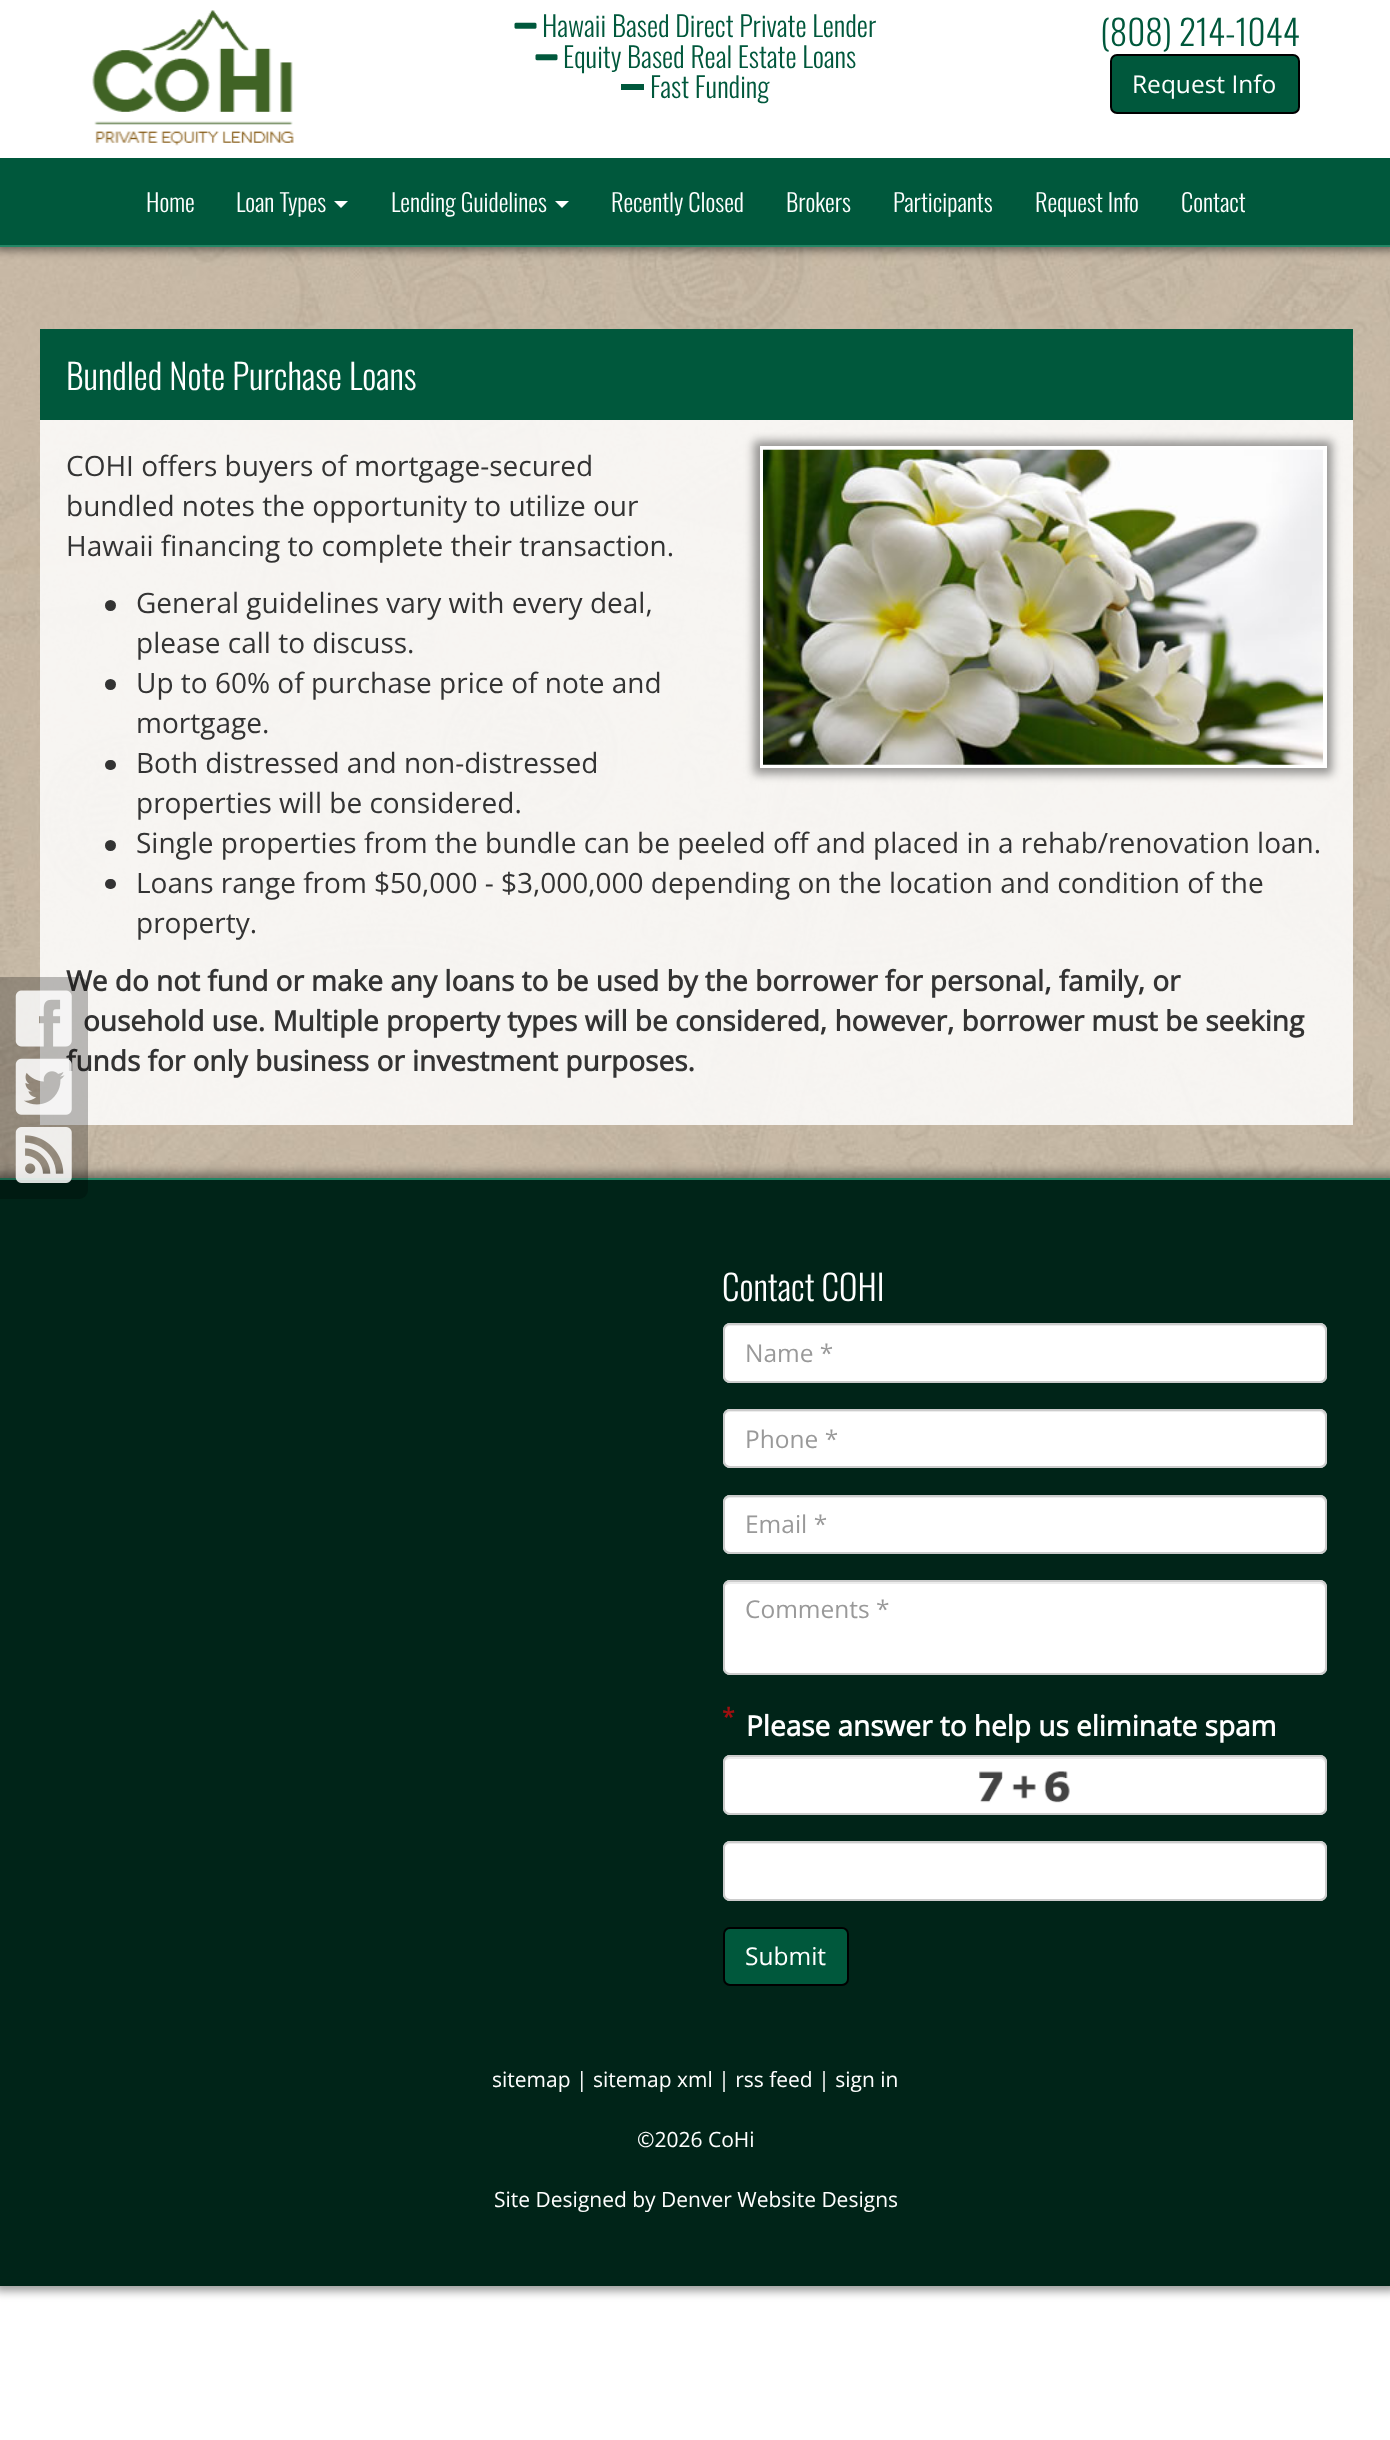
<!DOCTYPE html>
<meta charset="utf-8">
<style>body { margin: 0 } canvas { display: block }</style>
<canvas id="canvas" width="1390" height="2440"></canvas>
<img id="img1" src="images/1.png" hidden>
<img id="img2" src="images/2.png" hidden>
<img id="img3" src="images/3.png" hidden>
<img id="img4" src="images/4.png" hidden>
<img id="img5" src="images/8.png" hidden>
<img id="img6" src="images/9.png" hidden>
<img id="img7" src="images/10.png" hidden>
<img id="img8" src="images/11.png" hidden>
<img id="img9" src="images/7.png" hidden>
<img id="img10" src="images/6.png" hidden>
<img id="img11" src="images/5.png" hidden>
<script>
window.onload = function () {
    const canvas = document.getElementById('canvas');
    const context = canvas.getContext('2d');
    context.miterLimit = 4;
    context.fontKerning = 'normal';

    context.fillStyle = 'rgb(255, 255, 255)';
    context.fillRect(0, 0, 1390, 2440);
    context.drawImage(document.getElementById('img1'), 0, 247, 1390, 931);
    context.fillStyle = 'rgba(0, 0, 0, 0.5)';
    context.filter = 'blur(5px)';
    context.beginPath();
    context.rect(-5, -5, 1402, 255);
    context.fill();
    context.filter = 'none';
    context.fillStyle = 'rgb(255, 255, 255)';
    context.fillRect(0, 0, 1390, 158);
    context.drawImage(document.getElementById('img2'), 92, 10, 202, 136);
    context.drawImage(document.getElementById('img3'), 514, 22, 23, 7);
    context.drawImage(document.getElementById('img4'), 535, 54, 23, 7);
    context.fillStyle = 'rgb(0, 88, 60)';
    context.fillRect(621, 84, 23, 6);
    context.beginPath();
    context.roundRect(1111, 55, 188, 58, 6);
    context.fill();
    context.strokeStyle = 'rgb(0, 0, 0)';
    context.lineWidth = 2;
    context.stroke();
    context.fillRect(0, 158, 1390, 87);
    context.fillStyle = 'rgb(34, 134, 101)';
    context.fillRect(0, 245, 1390, 2);
    context.fillStyle = 'rgb(255, 255, 255)';
    context.beginPath();
    context.moveTo(334, 201);
    context.lineTo(348, 201);
    context.lineTo(341, 208);
    context.closePath();
    context.fill();
    context.beginPath();
    context.moveTo(555, 201);
    context.lineTo(569, 201);
    context.lineTo(562, 208);
    context.closePath();
    context.fill();
    context.fillStyle = 'rgba(255, 255, 255, 0.85)';
    context.fillRect(40, 420, 1313, 705);
    context.fillStyle = 'rgb(0, 88, 60)';
    context.fillRect(40, 329, 1313, 91);
    context.fillStyle = 'rgba(0, 0, 0, 0.4)';
    context.filter = 'blur(5px)';
    context.beginPath();
    context.rect(754, 441, 578, 333);
    context.fill();
    context.filter = 'none';
    context.strokeStyle = 'rgb(255, 255, 255)';
    context.lineWidth = 4;
    context.strokeRect(762, 448, 563, 318);
    context.drawImage(document.getElementById('img5'), 763, 449, 560, 316);
    context.fillStyle = 'rgb(51, 51, 51)';
    context.beginPath();
    context.arc(110.5, 605.5, 5.5, 0, 2 * Math.PI);
    context.fill();
    context.beginPath();
    context.arc(110.5, 684.5, 5.5, 0, 2 * Math.PI);
    context.fill();
    context.beginPath();
    context.roundRect(105, 760, 11, 10, 5);
    context.fill();
    context.beginPath();
    context.arc(110.5, 845.5, 5.5, 0, 2 * Math.PI);
    context.fill();
    context.beginPath();
    context.roundRect(105, 879, 11, 10, 5);
    context.fill();
    context.fillStyle = 'rgba(0, 0, 0, 0.4)';
    context.filter = 'blur(5px)';
    context.beginPath();
    context.rect(-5, 1173, 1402, 1118);
    context.fill();
    context.filter = 'none';
    context.fillStyle = 'rgb(0, 36, 24)';
    context.fillRect(0, 1180, 1390, 1106);
    context.fillStyle = 'rgb(34, 134, 101)';
    context.fillRect(0, 1178, 1390, 2);
    context.fillStyle = 'rgb(255, 255, 255)';
    context.beginPath();
    context.roundRect(723, 1323, 604, 60, 7);
    context.fill();
    context.fillStyle = 'rgb(236, 236, 236)';
    context.beginPath();
    context.moveTo(730, 1326);
    context.lineTo(1320, 1326);
    context.bezierCurveTo(1322, 1326, 1325, 1329, 1325, 1332);
    context.lineTo(1325, 1330);
    context.bezierCurveTo(1325, 1327, 1323, 1325, 1320, 1325);
    context.lineTo(730, 1325);
    context.bezierCurveTo(728, 1325, 726, 1327, 725, 1329);
    context.bezierCurveTo(726, 1327, 728, 1326, 730, 1326);
    context.closePath();
    context.fill();
    context.beginPath();
    context.roundRect(724, 1324, 602, 58, 6);
    context.strokeStyle = 'rgb(204, 204, 204)';
    context.lineWidth = 2;
    context.stroke();
    context.fillStyle = 'rgb(255, 255, 255)';
    context.beginPath();
    context.roundRect(723, 1409, 604, 59, 7);
    context.fill();
    context.fillStyle = 'rgb(236, 236, 236)';
    context.beginPath();
    context.moveTo(730, 1412);
    context.lineTo(1320, 1412);
    context.bezierCurveTo(1322, 1412, 1325, 1415, 1325, 1418);
    context.lineTo(1325, 1416);
    context.bezierCurveTo(1325, 1413, 1323, 1411, 1320, 1411);
    context.lineTo(730, 1411);
    context.bezierCurveTo(728, 1411, 726, 1413, 725, 1415);
    context.bezierCurveTo(726, 1413, 728, 1412, 730, 1412);
    context.closePath();
    context.fill();
    context.beginPath();
    context.roundRect(724, 1410, 602, 57, 6);
    context.stroke();
    context.fillStyle = 'rgb(255, 255, 255)';
    context.beginPath();
    context.roundRect(723, 1495, 604, 59, 7);
    context.fill();
    context.fillStyle = 'rgb(236, 236, 236)';
    context.beginPath();
    context.moveTo(730, 1498);
    context.lineTo(1320, 1498);
    context.bezierCurveTo(1322, 1498, 1325, 1500, 1325, 1503);
    context.lineTo(1325, 1501);
    context.bezierCurveTo(1325, 1498, 1323, 1496, 1320, 1496);
    context.lineTo(730, 1496);
    context.bezierCurveTo(728, 1496, 725, 1498, 725, 1500);
    context.bezierCurveTo(726, 1499, 728, 1498, 730, 1498);
    context.closePath();
    context.fill();
    context.beginPath();
    context.roundRect(724, 1496, 602, 57, 6);
    context.stroke();
    context.fillStyle = 'rgb(255, 255, 255)';
    context.beginPath();
    context.roundRect(723, 1580, 604, 95, 7);
    context.fill();
    context.fillStyle = 'rgb(236, 236, 236)';
    context.beginPath();
    context.moveTo(730, 1584);
    context.lineTo(1320, 1584);
    context.bezierCurveTo(1322, 1584, 1325, 1586, 1325, 1589);
    context.lineTo(1325, 1587);
    context.bezierCurveTo(1325, 1584, 1323, 1582, 1320, 1582);
    context.lineTo(730, 1582);
    context.bezierCurveTo(728, 1582, 725, 1584, 725, 1586);
    context.bezierCurveTo(726, 1585, 728, 1584, 730, 1584);
    context.closePath();
    context.fill();
    context.beginPath();
    context.roundRect(724, 1581, 602, 93, 6);
    context.stroke();
    context.fillStyle = 'rgb(255, 255, 255)';
    context.beginPath();
    context.roundRect(723, 1755, 604, 60, 7);
    context.fill();
    context.fillStyle = 'rgb(236, 236, 236)';
    context.beginPath();
    context.moveTo(730, 1759);
    context.lineTo(1320, 1759);
    context.bezierCurveTo(1322, 1759, 1325, 1761, 1325, 1764);
    context.lineTo(1325, 1762);
    context.bezierCurveTo(1325, 1759, 1323, 1757, 1320, 1757);
    context.lineTo(730, 1757);
    context.bezierCurveTo(728, 1757, 725, 1759, 725, 1761);
    context.bezierCurveTo(726, 1760, 728, 1759, 730, 1759);
    context.closePath();
    context.fill();
    context.beginPath();
    context.roundRect(724, 1756, 602, 58, 6);
    context.stroke();
    context.drawImage(document.getElementById('img6'), 979, 1771, 24, 32);
    context.drawImage(document.getElementById('img7'), 1012, 1775, 24, 24);
    context.drawImage(document.getElementById('img8'), 1044, 1771, 26, 32);
    context.fillStyle = 'rgb(255, 255, 255)';
    context.beginPath();
    context.roundRect(723, 1841, 604, 60, 7);
    context.fill();
    context.fillStyle = 'rgb(236, 236, 236)';
    context.beginPath();
    context.moveTo(730, 1844);
    context.lineTo(1320, 1844);
    context.bezierCurveTo(1322, 1844, 1325, 1847, 1325, 1850);
    context.lineTo(1325, 1848);
    context.bezierCurveTo(1325, 1845, 1323, 1843, 1320, 1843);
    context.lineTo(730, 1843);
    context.bezierCurveTo(728, 1843, 726, 1845, 725, 1847);
    context.bezierCurveTo(726, 1845, 728, 1844, 730, 1844);
    context.closePath();
    context.fill();
    context.beginPath();
    context.roundRect(724, 1842, 602, 58, 6);
    context.stroke();
    context.fillStyle = 'rgb(0, 88, 60)';
    context.beginPath();
    context.roundRect(724, 1928, 124, 57, 6);
    context.fill();
    context.strokeStyle = 'rgb(0, 0, 0)';
    context.stroke();
    context.font = '300 28px Oswald';
    context.fillText('Hawaii Based Direct Private Lender', 542, 37);
    context.fillText('Equity Based Real Estate Loans', 563, 68);
    context.fillText('Fast Funding', 650, 98);
    context.font = '300 35px Oswald';
    context.fillText('(808) 214-1044', 1100, 46);
    context.font = '24.5px Open Sans';
    context.fillStyle = 'rgb(255, 255, 255)';
    context.fillText('Request Info', 1132, 93);
    context.font = '300 24.5px Oswald';
    context.fillText('Home', 146, 212);
    context.fillText('Loan Types', 236, 212);
    context.fillText('Lending Guidelines', 391, 212);
    context.fillText('Recently Closed', 611, 212);
    context.fillText('Brokers', 786, 212);
    context.fillText('Participants', 893, 212);
    context.fillText('Request Info', 1035, 212);
    context.fillText('Contact', 1181, 212);
    context.font = '300 35px Oswald';
    context.fillText('Bundled Note Purchase Loans', 66, 390);
    context.font = '28px Open Sans';
    context.fillStyle = 'rgb(51, 51, 51)';
    context.fillText('COHI offers buyers of mortgage-secured', 66, 476);
    context.fillText('bundled notes the opportunity to utilize our', 66, 516);
    context.fillText('Hawaii financing to complete their transaction.', 66, 556);
    context.fillText('General guidelines vary with every deal,', 136, 613);
    context.fillText('please call to discuss.', 136, 653);
    context.fillText('Up to 60% of purchase price of note and', 136, 693);
    context.fillText('mortgage.', 136, 733);
    context.fillText('Both distressed and non-distressed', 136, 773);
    context.fillText('properties will be considered.', 136, 813);
    context.fillText('Single properties from the bundle can be peeled off and placed in a rehab/renovation loan.', 136, 853);
    context.fillText('Loans range from $50,000 - $3,000,000 depending on the location and condition of the', 136, 893);
    context.fillText('property.', 136, 933);
    context.font = 'bold 28px Open Sans';
    context.fillText('We do not fund or make any loans to be used by the borrower for personal, family, or', 66, 991);
    context.fillText('ousehold use. Multiple property types will be considered, however, borrower must be seeking', 83, 1031);
    context.fillText('funds for only business or investment purposes.', 66, 1071);
    context.fillStyle = 'rgba(0, 0, 0, 0.25)';
    context.beginPath();
    context.roundRect(0, 977, 88, 222, [0, 9, 9, 0]);
    context.fill();
    context.drawImage(document.getElementById('img9'), 15, 1127, 57, 56);
    context.drawImage(document.getElementById('img10'), 15, 1058, 57, 57);
    context.drawImage(document.getElementById('img11'), 15, 990, 57, 57);
    context.font = '300 35px Oswald';
    context.fillStyle = 'rgb(255, 255, 255)';
    context.fillText('Contact COHI', 722, 1301);
    context.font = '24.5px Open Sans';
    context.fillStyle = 'rgb(153, 153, 153)';
    context.fillText('Name *', 745, 1362);
    context.fillText('Phone *', 745, 1448);
    context.fillText('Email *', 745, 1533);
    context.fillText('Comments *', 745, 1618);
    context.font = 'bold 23px Open Sans';
    context.fillStyle = 'rgb(156, 16, 16)';
    context.fillText('*', 722, 1725);
    context.font = 'bold 28px Open Sans';
    context.fillStyle = 'rgb(255, 255, 255)';
    context.fillText('Please answer to help us eliminate spam', 746, 1736);
    context.font = '24.5px Open Sans';
    context.fillText('Submit', 745, 1965);
    context.font = '21px Open Sans';
    context.fillText('sitemap | sitemap xml | rss feed | sign in', 492, 2087);
    context.fillText('©2026 CoHi', 637, 2147);
    context.fillText('Site Designed by Denver Website Designs', 494, 2207);
};
</script>
